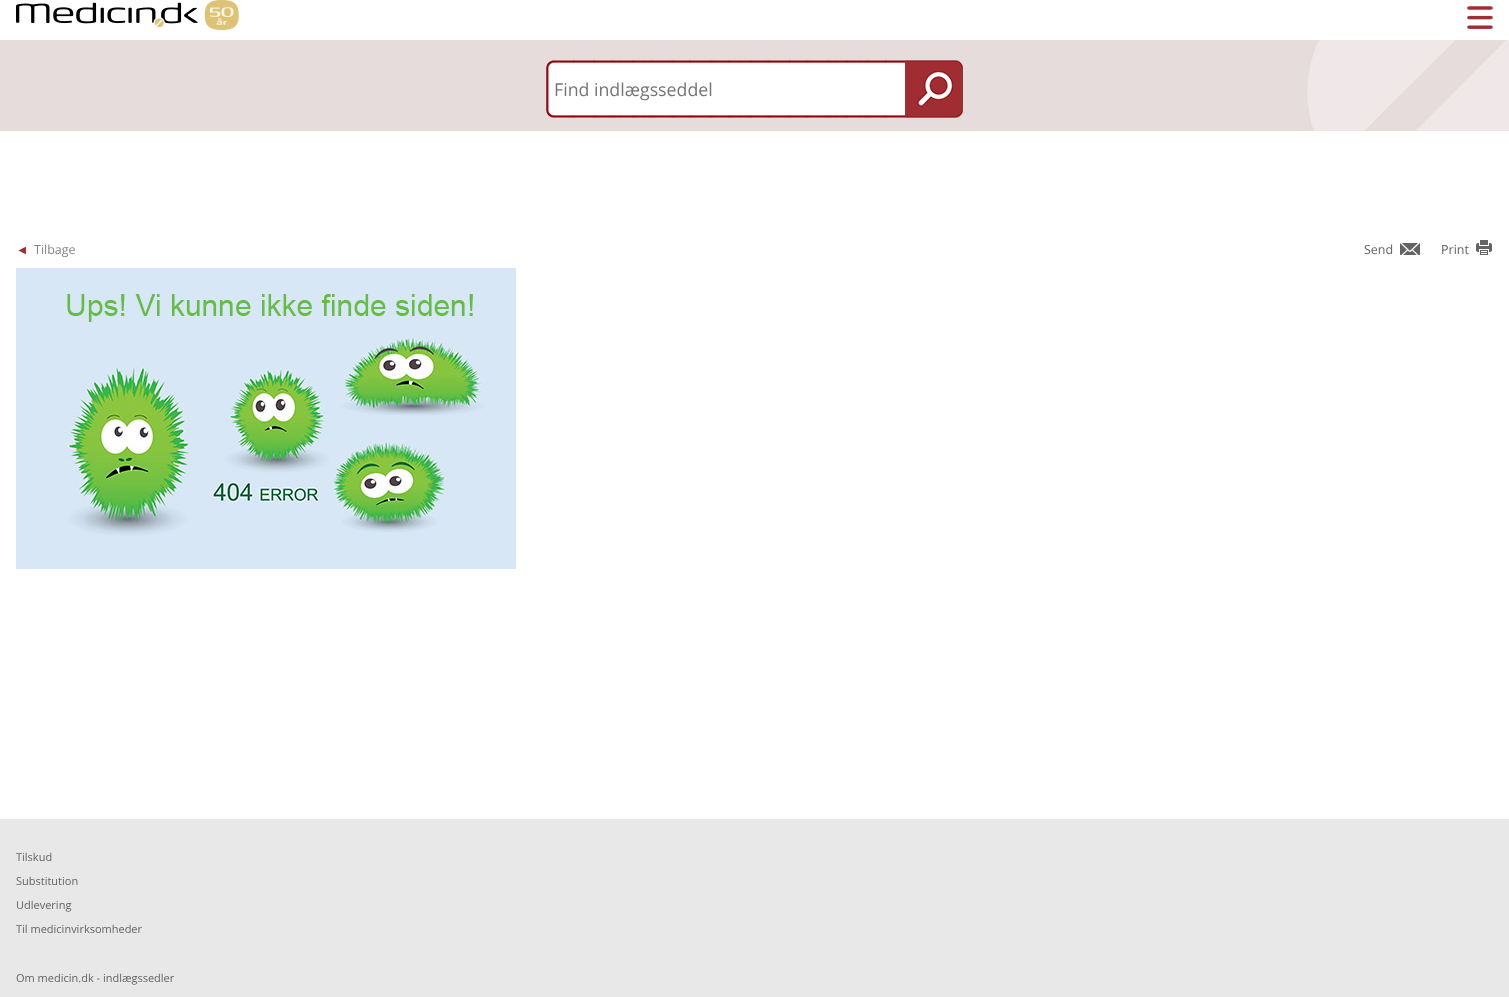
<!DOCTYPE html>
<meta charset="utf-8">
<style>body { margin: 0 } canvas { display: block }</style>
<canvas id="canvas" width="1509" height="997"></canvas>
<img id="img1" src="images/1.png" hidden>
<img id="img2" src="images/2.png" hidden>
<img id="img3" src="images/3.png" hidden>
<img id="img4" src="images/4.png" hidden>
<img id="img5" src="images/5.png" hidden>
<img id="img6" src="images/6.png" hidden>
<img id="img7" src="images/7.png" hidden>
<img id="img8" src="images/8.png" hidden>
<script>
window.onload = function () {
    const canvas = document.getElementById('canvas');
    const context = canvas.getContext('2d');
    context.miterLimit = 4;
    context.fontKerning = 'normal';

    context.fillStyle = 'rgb(255, 255, 255)';
    context.fillRect(0, 0, 1509, 997);
    context.drawImage(document.getElementById('img1'), 16, 0, 223, 30);
    context.drawImage(document.getElementById('img2'), 1467, 6, 26, 23);
    context.fillStyle = 'rgb(230, 220, 220)';
    context.fillRect(0, 40, 1509, 91);
    context.drawImage(document.getElementById('img3'), 1307, 40, 202, 91);
    context.drawImage(document.getElementById('img4'), 546, 60, 359, 58);
    context.drawImage(document.getElementById('img5'), 905, 60, 58, 58);
    context.drawImage(document.getElementById('img6'), 1400, 243, 20, 12);
    context.drawImage(document.getElementById('img7'), 1476, 240, 16, 15);
    context.drawImage(document.getElementById('img8'), 16, 268, 500, 301);
    context.fillStyle = 'rgb(232, 232, 232)';
    context.fillRect(0, 819, 1509, 178);
    context.font = '17.75px Open Sans';
    context.fillStyle = 'rgb(117, 117, 117)';
    context.fillText('Find indlægsseddel', 554, 96);
    context.font = '12.5px Liberation Sans';
    context.fillStyle = 'rgb(160, 45, 50)';
    context.fillText('◄', 16, 254);
    context.font = '12.5px Open Sans';
    context.fillStyle = 'rgb(134, 134, 134)';
    context.fillText('Tilbage', 34, 254);
    context.fillStyle = 'rgb(100, 100, 100)';
    context.fillText('Send', 1364, 254);
    context.fillText('Print', 1441, 254);
    context.font = '11px Open Sans';
    context.fillText('Tilskud', 16, 861);
    context.fillText('Substitution', 16, 885);
    context.fillText('Udlevering', 16, 909);
    context.fillText('Til medicinvirksomheder', 16, 933);
    context.fillText('Om medicin.dk - indlægssedler', 16, 982);
};
</script>
